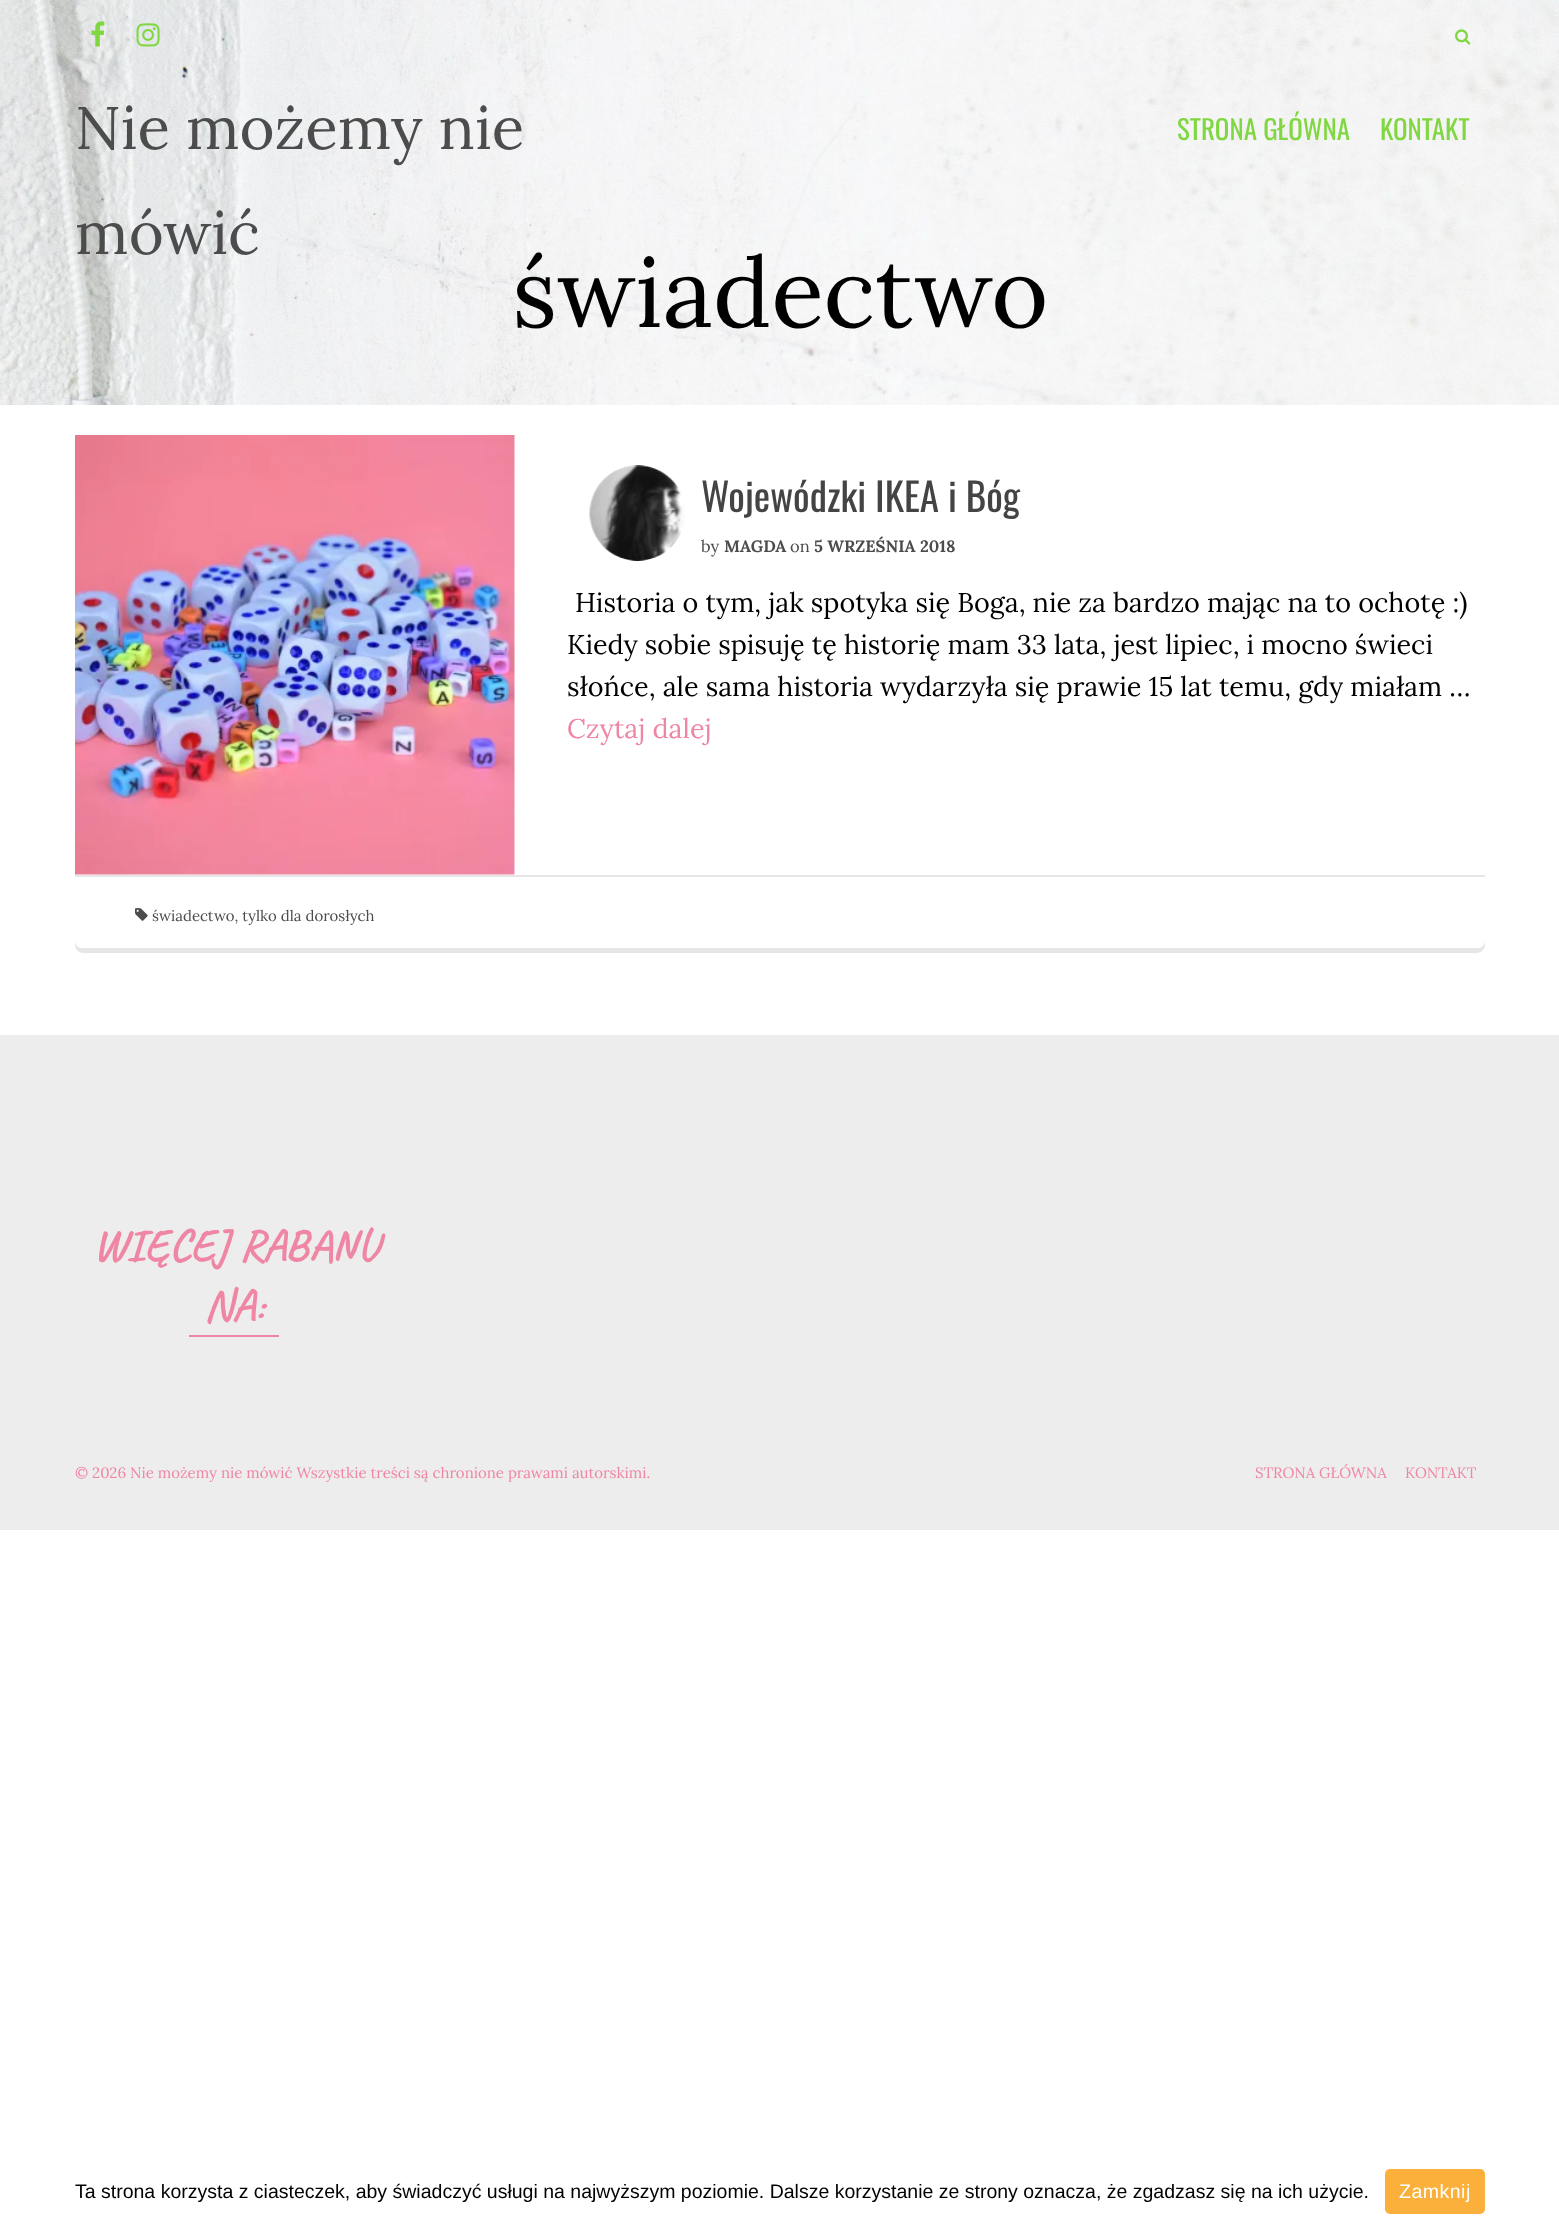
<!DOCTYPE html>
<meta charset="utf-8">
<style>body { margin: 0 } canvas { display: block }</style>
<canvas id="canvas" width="1559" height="2237"></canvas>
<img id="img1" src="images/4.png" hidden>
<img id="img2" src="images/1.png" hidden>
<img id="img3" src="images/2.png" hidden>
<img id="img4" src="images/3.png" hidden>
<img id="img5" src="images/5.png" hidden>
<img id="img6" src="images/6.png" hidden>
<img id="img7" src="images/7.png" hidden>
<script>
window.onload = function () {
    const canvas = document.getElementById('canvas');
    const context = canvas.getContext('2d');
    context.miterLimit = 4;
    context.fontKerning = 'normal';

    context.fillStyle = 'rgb(255, 255, 255)';
    context.fillRect(0, 0, 1559, 2237);
    context.drawImage(document.getElementById('img1'), 0, 0, 1559, 405);
    context.drawImage(document.getElementById('img2'), 91, 21, 14, 26);
    context.drawImage(document.getElementById('img3'), 136, 23, 24, 24);
    context.drawImage(document.getElementById('img4'), 1455, 29, 16, 16);
    context.drawImage(document.getElementById('img5'), 75, 435, 440, 440);
    context.drawImage(document.getElementById('img6'), 589, 465, 96, 96);
    context.fillStyle = 'rgb(230, 230, 230)';
    context.beginPath();
    context.moveTo(75, 940);
    context.lineTo(75, 945);
    context.bezierCurveTo(75, 949, 79, 953, 83, 953);
    context.lineTo(1477, 953);
    context.bezierCurveTo(1481, 953, 1485, 949, 1485, 945);
    context.lineTo(1485, 940);
    context.bezierCurveTo(1485, 945, 1482, 948, 1478, 948);
    context.lineTo(82, 948);
    context.bezierCurveTo(78, 948, 75, 945, 75, 940);
    context.closePath();
    context.fill();
    context.fillRect(75, 875, 1410, 2);
    context.drawImage(document.getElementById('img7'), 135, 908, 13, 13);
    context.fillStyle = 'rgb(237, 237, 237)';
    context.fillRect(0, 1035, 1559, 495);
    context.fillStyle = 'rgb(239, 134, 163)';
    context.fillRect(189, 1335, 90, 2);
    context.fillStyle = 'rgb(251, 176, 59)';
    context.beginPath();
    context.roundRect(1385, 2169, 100, 45, 5);
    context.fill();
    context.font = '60px Lora';
    context.fillStyle = 'rgb(76, 76, 76)';
    context.fillText('Nie możemy nie', 75, 149);
    context.fillText('mówić', 75, 254);
    context.font = '27px Oswald';
    context.fillStyle = 'rgb(129, 215, 66)';
    context.fillText('STRONA GŁÓWNA', 1177, 140);
    context.fillText('KONTAKT', 1380, 140);
    context.font = '97.5px Lora';
    context.fillStyle = 'rgb(0, 0, 0)';
    context.fillText('świadectwo', 512, 327);
    context.font = '39px Oswald';
    context.fillStyle = 'rgb(68, 68, 68)';
    context.fillText('Wojewódzki IKEA i Bóg', 701, 512);
    context.font = '16.5px Lora';
    context.fillStyle = 'rgb(76, 76, 76)';
    context.fillText('by', 701, 552);
    context.font = 'bold 16.5px Lora';
    context.fillText('MAGDA', 724, 552);
    context.font = '16.5px Lora';
    context.fillText('on', 790, 552);
    context.font = 'bold 16.5px Lora';
    context.fillText('5 WRZEŚNIA 2018', 814, 552);
    context.font = '27px Lora';
    context.fillStyle = 'rgb(0, 0, 0)';
    context.fillText('Historia o tym, jak spotyka się Boga, nie za bardzo mając na to ochotę :)', 575, 612);
    context.fillText('Kiedy sobie spisuję tę historię mam 33 lata, jest lipiec, i mocno świeci', 567, 654);
    context.fillText('słońce, ale sama historia wydarzyła się prawie 15 lat temu, gdy miałam …', 567, 696);
    context.fillStyle = 'rgb(239, 134, 163)';
    context.fillText('Czytaj dalej', 567, 738);
    context.font = '15px Lora';
    context.fillStyle = 'rgb(76, 76, 76)';
    context.fillText('świadectwo, tylko dla dorosłych', 152, 921);
    context.font = 'bold 45px Caveat';
    context.fillStyle = 'rgb(239, 134, 163)';
    context.fillText('WIĘCEJ RABANU', 93, 1260);
    context.fillText('NA:', 204, 1320);
    context.font = '15px Lora';
    context.fillText('© 2026 Nie możemy nie mówić Wszystkie treści są chronione prawami autorskimi.', 75, 1478);
    context.fillText('STRONA GŁÓWNA', 1255, 1478);
    context.fillText('KONTAKT', 1405, 1478);
    context.font = '19.5px Liberation Sans';
    context.fillStyle = 'rgb(0, 0, 0)';
    context.fillText('Ta strona korzysta z ciasteczek, aby świadczyć usługi na najwyższym poziomie. Dalsze korzystanie ze strony oznacza, że zgadzasz się na ich użycie.', 75, 2198);
    context.letterSpacing = '0.5px';
    context.fillStyle = 'rgb(255, 255, 255)';
    context.fillText('Zamknij', 1399, 2198);
};
</script>
